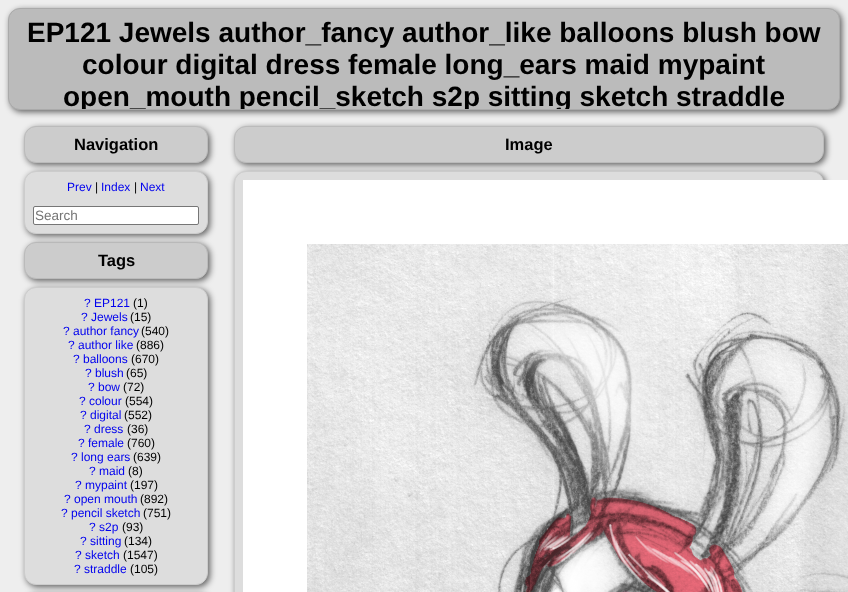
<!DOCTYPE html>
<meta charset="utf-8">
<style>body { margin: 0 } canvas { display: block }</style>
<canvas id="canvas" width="848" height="592"></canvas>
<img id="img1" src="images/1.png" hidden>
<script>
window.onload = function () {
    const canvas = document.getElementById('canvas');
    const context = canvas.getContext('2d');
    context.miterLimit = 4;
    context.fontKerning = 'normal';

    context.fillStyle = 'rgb(238, 238, 238)';
    context.fillRect(0, 0, 848, 592);
    context.fillStyle = 'rgba(0, 0, 0, 0.6)';
    context.filter = 'blur(3px)';
    context.beginPath();
    context.roundRect(10, 10, 832, 102, 12);
    context.fill();
    context.filter = 'none';
    context.fillStyle = 'rgb(187, 187, 187)';
    context.beginPath();
    context.roundRect(8.5, 8.5, 831, 101, 11.5);
    context.fill();
    context.strokeStyle = 'rgb(170, 170, 170)';
    context.stroke();
    context.fillStyle = 'rgba(0, 0, 0, 0.6)';
    context.filter = 'blur(3px)';
    context.beginPath();
    context.roundRect(26, 128, 184, 37, 12);
    context.fill();
    context.filter = 'none';
    context.fillStyle = 'rgb(204, 204, 204)';
    context.beginPath();
    context.roundRect(24.5, 126.5, 183, 36, 11.5);
    context.fill();
    context.strokeStyle = 'rgb(187, 187, 187)';
    context.stroke();
    context.fillStyle = 'rgba(0, 0, 0, 0.6)';
    context.filter = 'blur(3px)';
    context.beginPath();
    context.roundRect(26, 244, 184, 37, 12);
    context.fill();
    context.filter = 'none';
    context.fillStyle = 'rgb(204, 204, 204)';
    context.beginPath();
    context.roundRect(24.5, 242.5, 183, 36, 11.5);
    context.fill();
    context.stroke();
    context.fillStyle = 'rgba(0, 0, 0, 0.6)';
    context.filter = 'blur(3px)';
    context.beginPath();
    context.roundRect(26, 173, 184, 63, 12);
    context.fill();
    context.filter = 'none';
    context.fillStyle = 'rgb(221, 221, 221)';
    context.beginPath();
    context.roundRect(24.5, 171.5, 183, 62, 11.5);
    context.fill();
    context.strokeStyle = 'rgb(204, 204, 204)';
    context.stroke();
    context.fillStyle = 'rgb(255, 255, 255)';
    context.beginPath();
    context.roundRect(33.5, 206.5, 165, 18, 1.5);
    context.fill();
    context.strokeStyle = 'rgb(118, 118, 118)';
    context.stroke();
    context.fillStyle = 'rgba(0, 0, 0, 0.6)';
    context.filter = 'blur(3px)';
    context.beginPath();
    context.roundRect(26, 289, 184, 298, 12);
    context.fill();
    context.filter = 'none';
    context.fillStyle = 'rgb(221, 221, 221)';
    context.beginPath();
    context.roundRect(24.5, 287.5, 183, 297, 11.5);
    context.fill();
    context.strokeStyle = 'rgb(204, 204, 204)';
    context.stroke();
    context.fillStyle = 'rgba(0, 0, 0, 0.6)';
    context.filter = 'blur(3px)';
    context.beginPath();
    context.roundRect(26, 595, 184, 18, 12);
    context.fill();
    context.filter = 'none';
    context.filter = 'blur(3px)';
    context.beginPath();
    context.roundRect(236, 128, 590, 37, 12);
    context.fill();
    context.filter = 'none';
    context.fillStyle = 'rgb(204, 204, 204)';
    context.beginPath();
    context.roundRect(234.5, 126.5, 589, 36, 11.5);
    context.fill();
    context.strokeStyle = 'rgb(187, 187, 187)';
    context.stroke();
    context.fillStyle = 'rgba(0, 0, 0, 0.6)';
    context.filter = 'blur(3px)';
    context.beginPath();
    context.roundRect(236, 173, 590, 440, 12);
    context.fill();
    context.filter = 'none';
    context.fillStyle = 'rgb(221, 221, 221)';
    context.beginPath();
    context.roundRect(234.5, 171.5, 589, 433, 11.5);
    context.fill();
    context.strokeStyle = 'rgb(204, 204, 204)';
    context.stroke();
    context.drawImage(document.getElementById('img1'), 243, 180, 605, 412);
    context.font = 'bold 28px Liberation Sans';
    context.fillStyle = 'rgb(0, 0, 0)';
    context.fillText('EP121 Jewels author_fancy author_like balloons blush bow', 27, 42);
    context.fillText('colour digital dress female long_ears maid mypaint', 82, 74);
    context.save();
    context.beginPath();
    context.roundRect(9, 9, 830, 100, 11);
    context.clip();
    context.fillText('open_mouth pencil_sketch s2p sitting sketch straddle', 63, 106);
    context.restore();
    context.font = 'bold 16.5px Liberation Sans';
    context.fillText('Navigation', 74, 150);
    context.font = '12px Liberation Sans';
    context.fillStyle = 'rgb(0, 0, 238)';
    context.fillText('Prev', 67, 191);
    context.fillStyle = 'rgb(0, 0, 0)';
    context.fillText('|', 95, 191);
    context.fillStyle = 'rgb(0, 0, 238)';
    context.fillText('Index', 101, 191);
    context.fillStyle = 'rgb(0, 0, 0)';
    context.fillText('|', 134, 191);
    context.fillStyle = 'rgb(0, 0, 238)';
    context.fillText('Next', 140, 191);
    context.font = '13.5px Liberation Sans';
    context.fillStyle = 'rgb(117, 117, 117)';
    context.fillText('Search', 35, 220);
    context.font = 'bold 16.5px Liberation Sans';
    context.fillStyle = 'rgb(0, 0, 0)';
    context.fillText('Tags', 98, 266);
    context.font = '12px Liberation Sans';
    context.fillStyle = 'rgb(0, 0, 238)';
    context.fillText('? EP121', 84, 307);
    context.fillStyle = 'rgb(0, 0, 0)';
    context.fillText('(1)', 133, 307);
    context.fillStyle = 'rgb(0, 0, 238)';
    context.fillText('? Jewels', 81, 321);
    context.fillStyle = 'rgb(0, 0, 0)';
    context.fillText('(15)', 130, 321);
    context.fillStyle = 'rgb(0, 0, 238)';
    context.fillText('? author fancy', 63, 335);
    context.fillStyle = 'rgb(0, 0, 0)';
    context.fillText('(540)', 141, 335);
    context.fillStyle = 'rgb(0, 0, 238)';
    context.fillText('? author like', 68, 349);
    context.fillStyle = 'rgb(0, 0, 0)';
    context.fillText('(886)', 136, 349);
    context.fillStyle = 'rgb(0, 0, 238)';
    context.fillText('? balloons', 73, 363);
    context.fillStyle = 'rgb(0, 0, 0)';
    context.fillText('(670)', 131, 363);
    context.fillStyle = 'rgb(0, 0, 238)';
    context.fillText('? blush', 85, 377);
    context.fillStyle = 'rgb(0, 0, 0)';
    context.fillText('(65)', 126, 377);
    context.fillStyle = 'rgb(0, 0, 238)';
    context.fillText('? bow', 88, 391);
    context.fillStyle = 'rgb(0, 0, 0)';
    context.fillText('(72)', 123, 391);
    context.fillStyle = 'rgb(0, 0, 238)';
    context.fillText('? colour', 79, 405);
    context.fillStyle = 'rgb(0, 0, 0)';
    context.fillText('(554)', 125, 405);
    context.fillStyle = 'rgb(0, 0, 238)';
    context.fillText('? digital', 80, 419);
    context.fillStyle = 'rgb(0, 0, 0)';
    context.fillText('(552)', 124, 419);
    context.fillStyle = 'rgb(0, 0, 238)';
    context.fillText('? dress', 84, 433);
    context.fillStyle = 'rgb(0, 0, 0)';
    context.fillText('(36)', 127, 433);
    context.fillStyle = 'rgb(0, 0, 238)';
    context.fillText('? female', 78, 447);
    context.fillStyle = 'rgb(0, 0, 0)';
    context.fillText('(760)', 127, 447);
    context.fillStyle = 'rgb(0, 0, 238)';
    context.fillText('? long ears', 71, 461);
    context.fillStyle = 'rgb(0, 0, 0)';
    context.fillText('(639)', 133, 461);
    context.fillStyle = 'rgb(0, 0, 238)';
    context.fillText('? maid', 89, 475);
    context.fillStyle = 'rgb(0, 0, 0)';
    context.fillText('(8)', 128, 475);
    context.fillStyle = 'rgb(0, 0, 238)';
    context.fillText('? mypaint', 75, 489);
    context.fillStyle = 'rgb(0, 0, 0)';
    context.fillText('(197)', 130, 489);
    context.fillStyle = 'rgb(0, 0, 238)';
    context.fillText('? open mouth', 64, 503);
    context.fillStyle = 'rgb(0, 0, 0)';
    context.fillText('(892)', 140, 503);
    context.fillStyle = 'rgb(0, 0, 238)';
    context.fillText('? pencil sketch', 61, 517);
    context.fillStyle = 'rgb(0, 0, 0)';
    context.fillText('(751)', 143, 517);
    context.fillStyle = 'rgb(0, 0, 238)';
    context.fillText('? s2p', 89, 531);
    context.fillStyle = 'rgb(0, 0, 0)';
    context.fillText('(93)', 122, 531);
    context.fillStyle = 'rgb(0, 0, 238)';
    context.fillText('? sitting', 80, 545);
    context.fillStyle = 'rgb(0, 0, 0)';
    context.fillText('(134)', 124, 545);
    context.fillStyle = 'rgb(0, 0, 238)';
    context.fillText('? sketch', 75, 559);
    context.fillStyle = 'rgb(0, 0, 0)';
    context.fillText('(1547)', 123, 559);
    context.fillStyle = 'rgb(0, 0, 238)';
    context.fillText('? straddle', 74, 573);
    context.fillStyle = 'rgb(0, 0, 0)';
    context.fillText('(105)', 130, 573);
    context.font = 'bold 16.5px Liberation Sans';
    context.fillText('Image', 505, 150);
};
</script>
